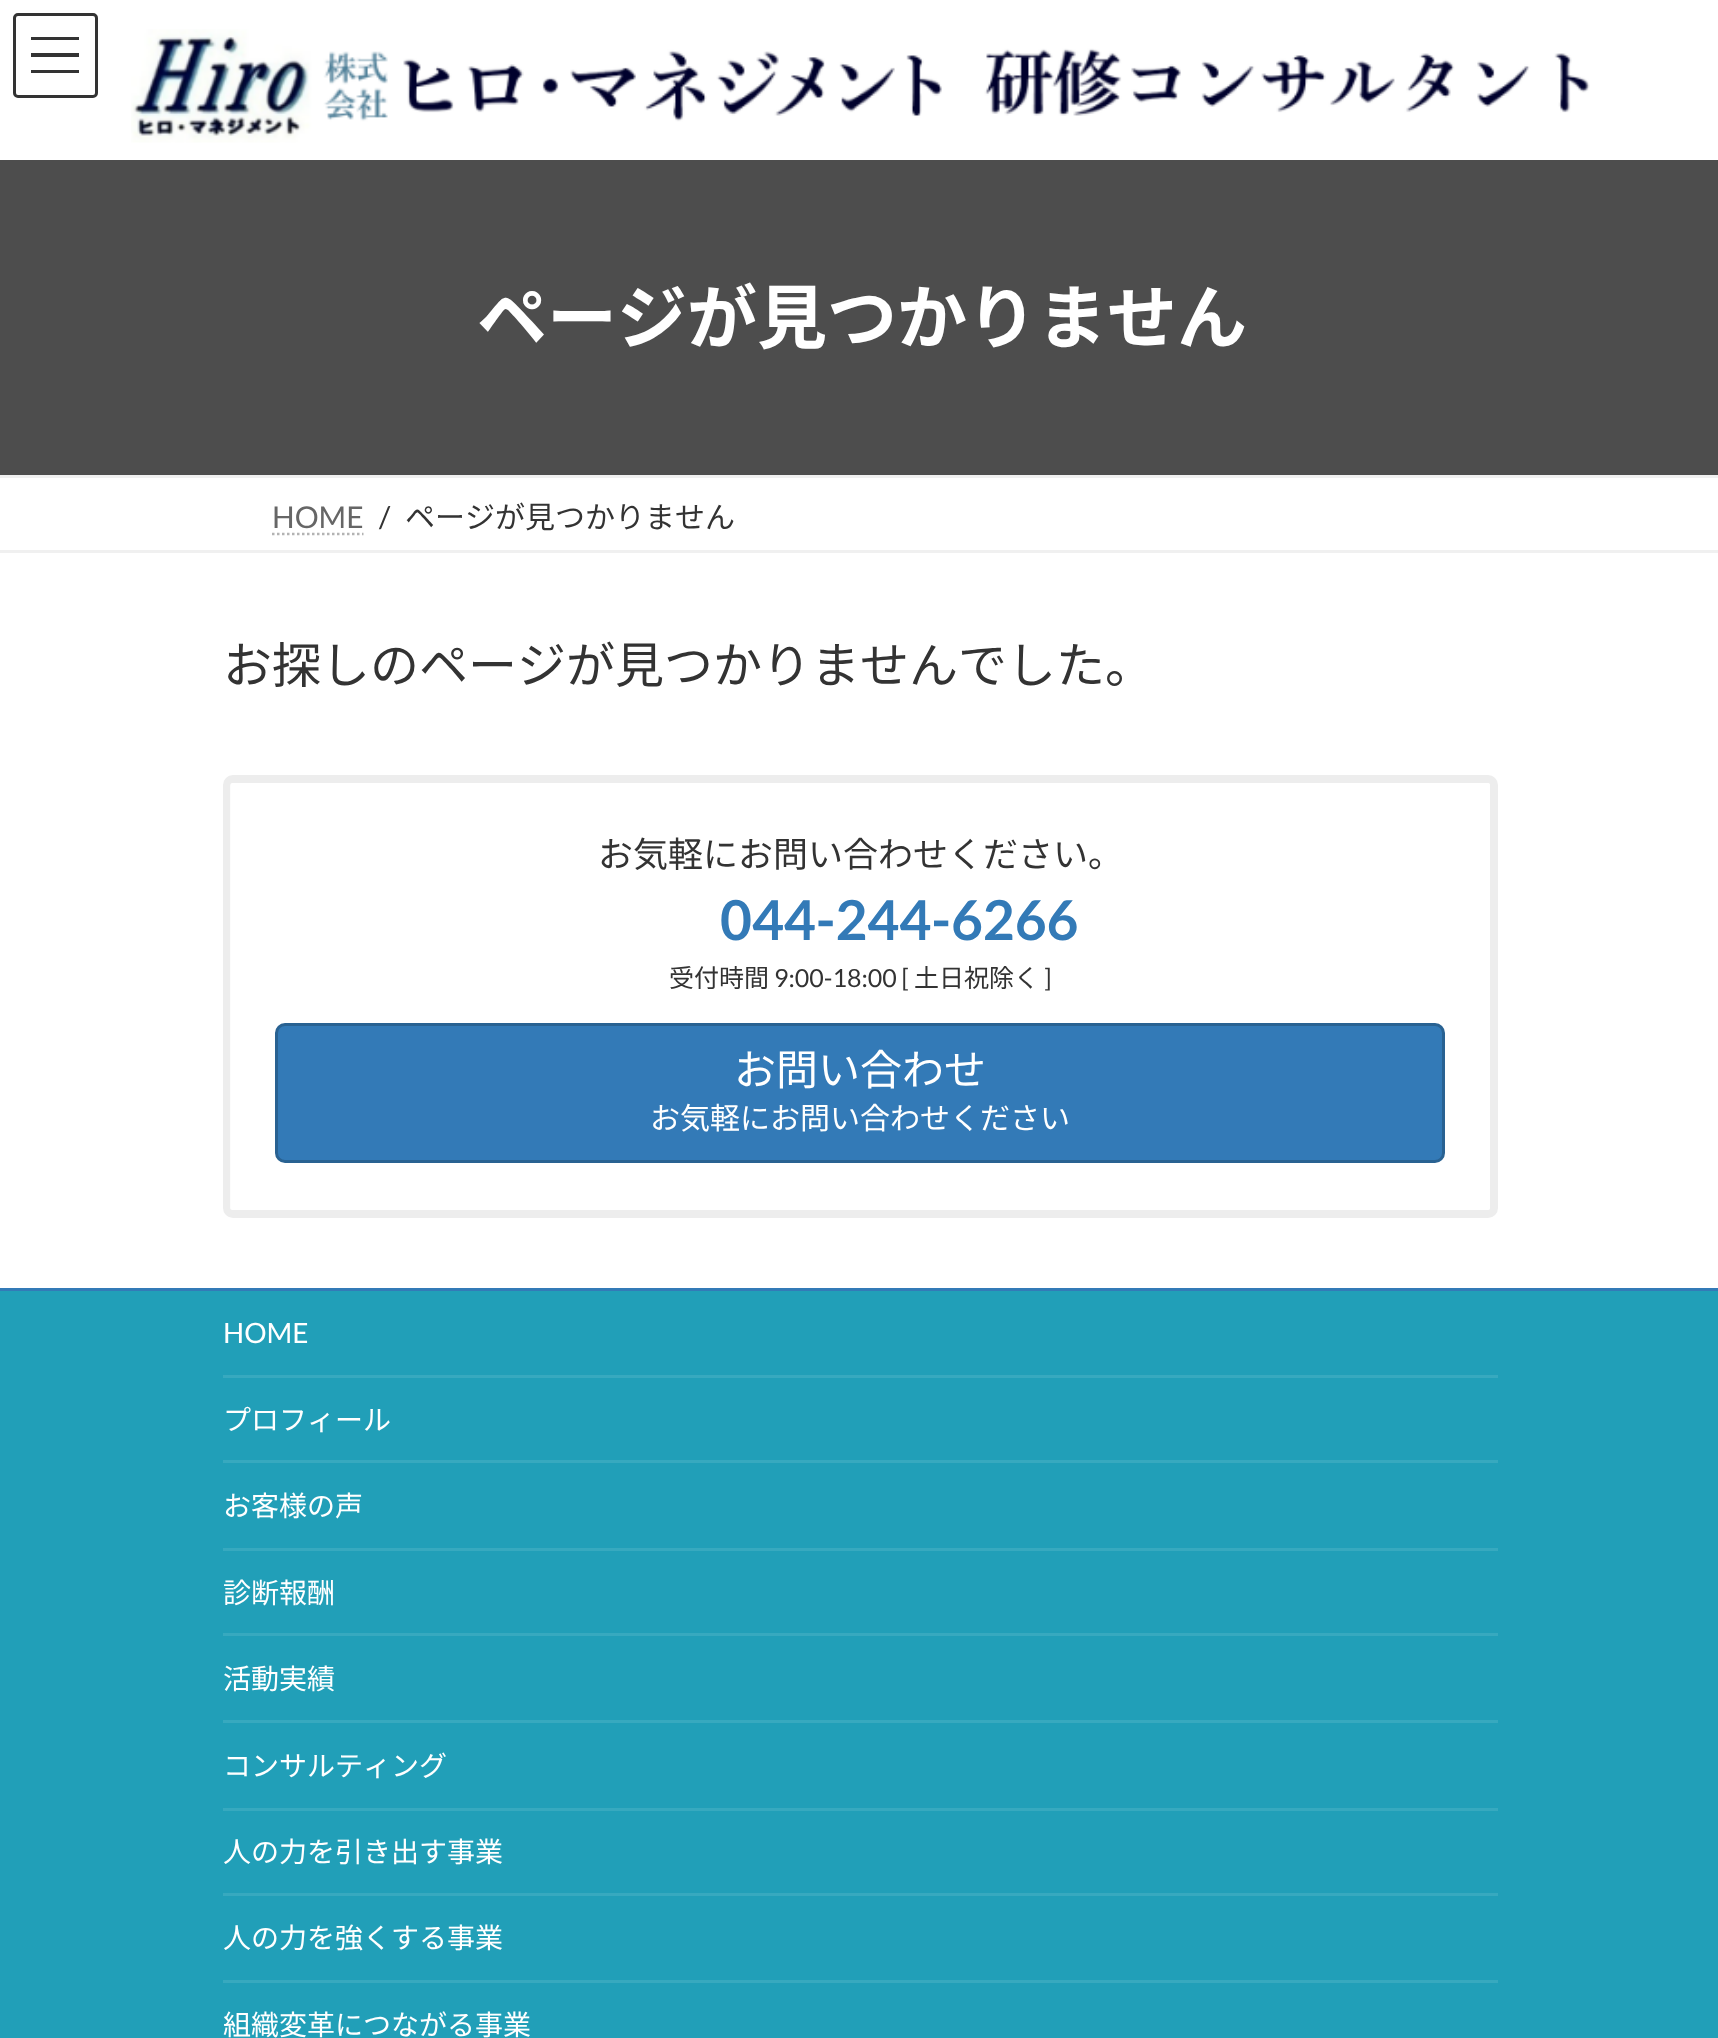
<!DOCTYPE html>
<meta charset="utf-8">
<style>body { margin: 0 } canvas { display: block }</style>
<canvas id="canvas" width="1718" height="2038"></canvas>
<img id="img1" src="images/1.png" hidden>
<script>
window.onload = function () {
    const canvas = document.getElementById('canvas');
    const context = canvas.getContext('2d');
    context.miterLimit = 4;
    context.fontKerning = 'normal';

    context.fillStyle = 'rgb(255, 255, 255)';
    context.fillRect(0, 0, 1718, 2038);
    context.fillStyle = 'rgb(51, 51, 51)';
    context.fillRect(31, 37, 48, 3);
    context.fillRect(31, 53, 48, 4);
    context.fillRect(31, 70, 48, 3);
    context.beginPath();
    context.roundRect(14.5, 14.5, 82, 82, 3.5);
    context.strokeStyle = 'rgb(51, 51, 51)';
    context.lineWidth = 3;
    context.stroke();
    context.drawImage(document.getElementById('img1'), 131, 29, 1459, 114);
    context.fillStyle = 'rgb(77, 77, 77)';
    context.fillRect(0, 160, 1718, 315);
    context.fillStyle = 'rgb(240, 240, 240)';
    context.fillRect(0, 475, 1718, 3);
    context.fillRect(0, 550, 1718, 3);
    context.beginPath();
    context.moveTo(272, 534);
    context.lineTo(363.5, 534);
    context.strokeStyle = 'rgb(179, 179, 179)';
    context.lineWidth = 2.5;
    context.setLineDash([2.5, 2.5]);
    context.stroke();
    context.beginPath();
    context.roundRect(227, 779, 1267, 435, 6);
    context.strokeStyle = 'rgb(237, 237, 237)';
    context.lineWidth = 8;
    context.setLineDash([]);
    context.stroke();
    context.fillStyle = 'rgba(255, 255, 255, 0.8)';
    context.beginPath();
    context.moveTo(232, 783);
    context.bezierCurveTo(231, 783, 230, 784, 230, 786);
    context.lineTo(230, 1208);
    context.bezierCurveTo(230, 1209, 231, 1210, 232, 1210);
    context.lineTo(1488, 1210);
    context.bezierCurveTo(1489, 1210, 1490, 1209, 1490, 1208);
    context.lineTo(1490, 786);
    context.bezierCurveTo(1490, 784, 1489, 783, 1488, 783);
    context.closePath();
    context.moveTo(233, 786);
    context.lineTo(233, 1207);
    context.lineTo(1487, 1207);
    context.lineTo(1487, 786);
    context.closePath();
    context.fill('evenodd');
    context.fillStyle = 'rgb(51, 122, 183)';
    context.beginPath();
    context.roundRect(276.5, 1024.5, 1167, 137, 8.5);
    context.fill();
    context.strokeStyle = 'rgb(41, 98, 146)';
    context.lineWidth = 3;
    context.stroke();
    context.fillStyle = 'rgb(33, 159, 184)';
    context.fillRect(0, 1291, 1718, 747);
    context.fillStyle = 'rgb(51, 122, 183)';
    context.fillRect(0, 1288, 1718, 3);
    context.fillStyle = 'rgb(55, 169, 191)';
    context.fillRect(223, 1375, 1275, 3);
    context.fillRect(223, 1460, 1275, 3);
    context.fillRect(223, 1548, 1275, 3);
    context.fillRect(223, 1633, 1275, 3);
    context.fillRect(223, 1720, 1275, 3);
    context.fillRect(223, 1808, 1275, 3);
    context.fillRect(223, 1893, 1275, 3);
    context.fillRect(223, 1980, 1275, 3);
    context.font = 'bold 70px Noto Sans JP';
    context.fillStyle = 'rgb(255, 255, 255)';
    context.fillText('ページが見つかりません', 477, 343);
    context.font = '30px Lato';
    context.fillStyle = 'rgb(102, 102, 102)';
    context.fillText('HOME', 272, 528);
    context.fillStyle = 'rgb(51, 51, 51)';
    context.fillText('/', 379, 528);
    context.font = '30px Noto Sans JP';
    context.fillText('ページが見つかりません', 405, 528);
    context.font = '49px Noto Sans JP';
    context.fillText('お探しのページが見つかりませんでした。', 223, 683);
    context.font = '35px Noto Sans JP';
    context.fillText('お気軽にお問い合わせください。', 598, 867);
    context.font = 'bold 55px Lato';
    context.fillStyle = 'rgb(51, 122, 183)';
    context.fillText('044-244-6266', 720, 940);
    context.font = '25px Noto Sans JP';
    context.fillStyle = 'rgb(51, 51, 51)';
    context.fillText('受付時間', 669, 987);
    context.font = '25px Lato';
    context.fillText('9:00-18:00 [', 774, 987);
    context.font = '25px Noto Sans JP';
    context.fillText('土日祝除く', 914, 987);
    context.font = '25px Lato';
    context.fillText(']', 1044, 987);
    context.font = '42px Noto Sans JP';
    context.fillStyle = 'rgb(255, 255, 255)';
    context.fillText('お問い合わせ', 734, 1085);
    context.font = '30px Noto Sans JP';
    context.fillText('お気軽にお問い合わせください', 650, 1129);
    context.font = '28px Lato';
    context.fillText('HOME', 223, 1343);
    context.font = '28px Noto Sans JP';
    context.fillText('プロフィール', 223, 1430);
    context.fillText('お客様の声', 223, 1516);
    context.fillText('診断報酬', 223, 1603);
    context.fillText('活動実績', 223, 1689);
    context.fillText('コンサルティング', 223, 1776);
    context.fillText('人の力を引き出す事業', 223, 1862);
    context.fillText('人の力を強くする事業', 223, 1948);
    context.fillText('組織変革につながる事業', 223, 2035);
};
</script>
